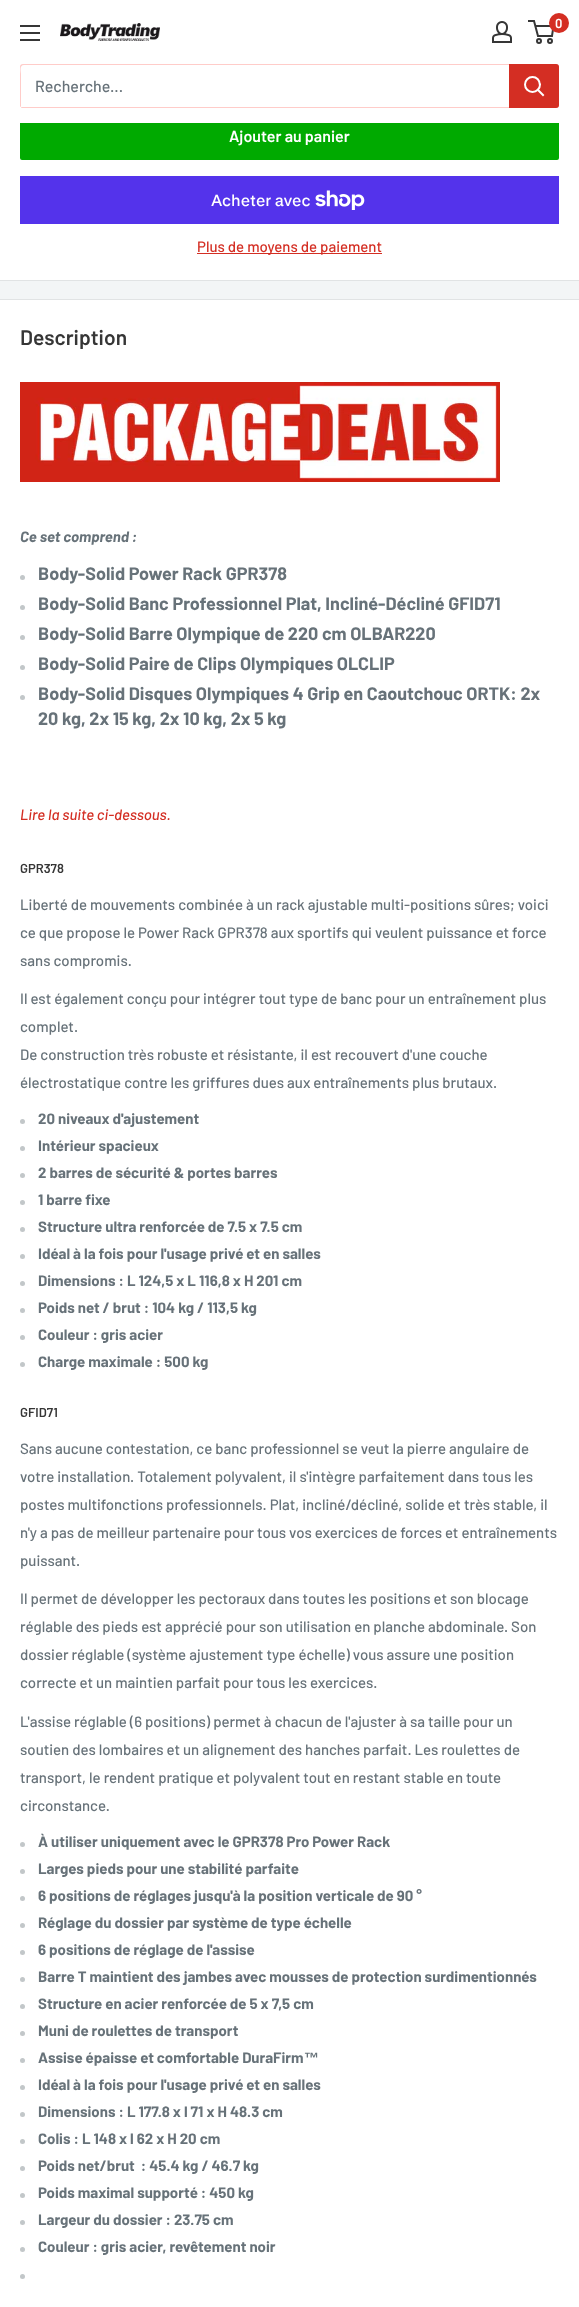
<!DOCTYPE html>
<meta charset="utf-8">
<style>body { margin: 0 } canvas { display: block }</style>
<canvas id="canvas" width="579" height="2307"></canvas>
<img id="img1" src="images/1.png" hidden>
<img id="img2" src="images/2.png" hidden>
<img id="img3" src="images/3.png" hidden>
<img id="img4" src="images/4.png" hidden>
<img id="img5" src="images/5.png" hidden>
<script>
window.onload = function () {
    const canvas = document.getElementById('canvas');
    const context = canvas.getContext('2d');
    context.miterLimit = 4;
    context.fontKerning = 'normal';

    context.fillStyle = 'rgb(243, 245, 246)';
    context.fillRect(0, 0, 579, 2307);
    context.fillStyle = 'rgb(255, 255, 255)';
    context.fillRect(0, 123, 579, 157);
    context.fillStyle = 'rgb(0, 170, 0)';
    context.beginPath();
    context.roundRect(20, 112, 539, 48, 2);
    context.fill();
    context.fillStyle = 'rgb(255, 255, 255)';
    context.fillRect(0, 0, 579, 123);
    context.drawImage(document.getElementById('img1'), 20, 25, 20, 16);
    context.drawImage(document.getElementById('img2'), 60, 23, 100, 18);
    context.drawImage(document.getElementById('img3'), 492, 21, 20, 22);
    context.beginPath();
    context.arc(539, 41, 2, 0, 2 * Math.PI);
    context.strokeStyle = 'rgb(54, 54, 54)';
    context.lineWidth = 2;
    context.stroke();
    context.beginPath();
    context.arc(550, 41, 2, 0, 2 * Math.PI);
    context.stroke();
    context.beginPath();
    context.moveTo(535.5, 26);
    context.lineTo(553.5, 26);
    context.lineTo(552, 36);
    context.lineTo(538, 36);
    context.lineTo(534, 21);
    context.lineTo(528, 21);
    context.stroke();
    context.fillStyle = 'rgb(212, 46, 35)';
    context.beginPath();
    context.arc(559, 23, 10, 0, 2 * Math.PI);
    context.fill();
    context.fillStyle = 'rgb(255, 204, 201)';
    context.beginPath();
    context.moveTo(21, 107);
    context.bezierCurveTo(21, 108, 22, 108, 23, 108);
    context.lineTo(556, 108);
    context.bezierCurveTo(558, 108, 559, 107, 559, 105);
    context.lineTo(559, 67);
    context.bezierCurveTo(559, 66, 559, 65, 558, 65);
    context.lineTo(558, 98);
    context.bezierCurveTo(558, 100, 560, 107, 555, 107);
    context.closePath();
    context.fill();
    context.beginPath();
    context.moveTo(24, 65);
    context.lineTo(558, 65);
    context.bezierCurveTo(558, 64, 557, 64, 556, 64);
    context.lineTo(23, 64);
    context.bezierCurveTo(21, 64, 20, 65, 20, 67);
    context.lineTo(20, 105);
    context.bezierCurveTo(20, 106, 20, 107, 21, 107);
    context.lineTo(21, 74);
    context.bezierCurveTo(21, 72, 19, 65, 24, 65);
    context.closePath();
    context.fill();
    context.fillStyle = 'rgb(212, 46, 35)';
    context.beginPath();
    context.roundRect(509, 64, 50, 44, [0, 3, 3, 0]);
    context.fill();
    context.beginPath();
    context.moveTo(543, 95);
    context.lineTo(538, 90);
    context.strokeStyle = 'rgb(255, 255, 255)';
    context.lineCap = 'square';
    context.stroke();
    context.beginPath();
    context.arc(532.5, 84.5, 7.5, 0, 2 * Math.PI);
    context.stroke();
    context.fillStyle = 'rgb(225, 227, 228)';
    context.fillRect(0, 280, 579, 1);
    context.fillStyle = 'rgb(84, 51, 235)';
    context.fillRect(20, 176, 539, 48);
    context.drawImage(document.getElementById('img4'), 315, 190, 50, 20);
    context.fillStyle = 'rgb(212, 46, 35)';
    context.fillRect(197, 253, 185, 1);
    context.fillStyle = 'rgb(255, 255, 255)';
    context.fillRect(0, 300, 579, 2007);
    context.fillStyle = 'rgb(225, 227, 228)';
    context.fillRect(0, 299, 579, 1);
    context.drawImage(document.getElementById('img5'), 20, 382, 480, 100);
    context.fillStyle = 'rgb(194, 199, 201)';
    context.beginPath();
    context.arc(22.5, 577.5, 2.5, 0, 2 * Math.PI);
    context.fill();
    context.beginPath();
    context.arc(22.5, 607.5, 2.5, 0, 2 * Math.PI);
    context.fill();
    context.beginPath();
    context.arc(22.5, 637.5, 2.5, 0, 2 * Math.PI);
    context.fill();
    context.beginPath();
    context.arc(22.5, 667.5, 2.5, 0, 2 * Math.PI);
    context.fill();
    context.beginPath();
    context.arc(22.5, 697.5, 2.5, 0, 2 * Math.PI);
    context.fill();
    context.beginPath();
    context.arc(22.5, 1121.5, 2.5, 0, 2 * Math.PI);
    context.fill();
    context.beginPath();
    context.arc(22.5, 1148.5, 2.5, 0, 2 * Math.PI);
    context.fill();
    context.beginPath();
    context.arc(22.5, 1175.5, 2.5, 0, 2 * Math.PI);
    context.fill();
    context.beginPath();
    context.arc(22.5, 1202.5, 2.5, 0, 2 * Math.PI);
    context.fill();
    context.beginPath();
    context.arc(22.5, 1229.5, 2.5, 0, 2 * Math.PI);
    context.fill();
    context.beginPath();
    context.arc(22.5, 1256.5, 2.5, 0, 2 * Math.PI);
    context.fill();
    context.beginPath();
    context.arc(22.5, 1283.5, 2.5, 0, 2 * Math.PI);
    context.fill();
    context.beginPath();
    context.arc(22.5, 1310.5, 2.5, 0, 2 * Math.PI);
    context.fill();
    context.beginPath();
    context.arc(22.5, 1337.5, 2.5, 0, 2 * Math.PI);
    context.fill();
    context.beginPath();
    context.arc(22.5, 1364.5, 2.5, 0, 2 * Math.PI);
    context.fill();
    context.beginPath();
    context.arc(22.5, 1844.5, 2.5, 0, 2 * Math.PI);
    context.fill();
    context.beginPath();
    context.arc(22.5, 1871.5, 2.5, 0, 2 * Math.PI);
    context.fill();
    context.beginPath();
    context.arc(22.5, 1898.5, 2.5, 0, 2 * Math.PI);
    context.fill();
    context.beginPath();
    context.arc(22.5, 1925.5, 2.5, 0, 2 * Math.PI);
    context.fill();
    context.beginPath();
    context.arc(22.5, 1952.5, 2.5, 0, 2 * Math.PI);
    context.fill();
    context.beginPath();
    context.arc(22.5, 1979.5, 2.5, 0, 2 * Math.PI);
    context.fill();
    context.beginPath();
    context.arc(22.5, 2006.5, 2.5, 0, 2 * Math.PI);
    context.fill();
    context.beginPath();
    context.arc(22.5, 2033.5, 2.5, 0, 2 * Math.PI);
    context.fill();
    context.beginPath();
    context.arc(22.5, 2060.5, 2.5, 0, 2 * Math.PI);
    context.fill();
    context.beginPath();
    context.arc(22.5, 2087.5, 2.5, 0, 2 * Math.PI);
    context.fill();
    context.beginPath();
    context.arc(22.5, 2114.5, 2.5, 0, 2 * Math.PI);
    context.fill();
    context.beginPath();
    context.arc(22.5, 2141.5, 2.5, 0, 2 * Math.PI);
    context.fill();
    context.beginPath();
    context.arc(22.5, 2168.5, 2.5, 0, 2 * Math.PI);
    context.fill();
    context.beginPath();
    context.arc(22.5, 2195.5, 2.5, 0, 2 * Math.PI);
    context.fill();
    context.beginPath();
    context.arc(22.5, 2222.5, 2.5, 0, 2 * Math.PI);
    context.fill();
    context.beginPath();
    context.arc(22.5, 2249.5, 2.5, 0, 2 * Math.PI);
    context.fill();
    context.beginPath();
    context.arc(22.5, 2276.5, 2.5, 0, 2 * Math.PI);
    context.fill();
    context.font = '600 13px Barlow';
    context.fillStyle = 'rgb(255, 255, 255)';
    context.fillText('0', 555, 28);
    context.font = '500 16px Barlow';
    context.fillStyle = 'rgb(103, 114, 121)';
    context.fillText('Recherche...', 35, 92);
    context.font = '600 16px Barlow';
    context.fillStyle = 'rgb(255, 255, 255)';
    context.fillText('Ajouter au panier', 229, 142);
    context.font = '500 16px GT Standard';
    context.fillText('Acheter avec', 211, 206);
    context.font = '500 15px Barlow';
    context.fillStyle = 'rgb(212, 46, 35)';
    context.fillText('Plus de moyens de paiement', 197, 252);
    context.font = '600 21px Barlow';
    context.fillStyle = 'rgb(54, 54, 54)';
    context.fillText('Description', 20, 345);
    context.font = 'italic bold 15px Barlow';
    context.fillStyle = 'rgb(103, 114, 121)';
    context.fillText('Ce set comprend :', 20, 542);
    context.font = 'bold 18px Barlow';
    context.fillText('Body-Solid Power Rack GPR378', 38, 580);
    context.fillText('Body-Solid Banc Professionnel Plat, Incliné-Décliné GFID71', 38, 610);
    context.fillText('Body-Solid Barre Olympique de 220 cm OLBAR220', 38, 640);
    context.fillText('Body-Solid Paire de Clips Olympiques OLCLIP', 38, 670);
    context.fillText('Body-Solid Disques Olympiques 4 Grip en Caoutchouc ORTK: 2x', 38, 700);
    context.fillText('20 kg, 2x 15 kg, 2x 10 kg, 2x 5 kg', 38, 725);
    context.font = 'italic 500 15px Barlow';
    context.fillStyle = 'rgb(212, 46, 35)';
    context.fillText('Lire la suite ci-dessous.', 20, 820);
    context.font = '600 13px Barlow';
    context.fillStyle = 'rgb(54, 54, 54)';
    context.fillText('GPR378', 20, 873);
    context.font = '500 15px Barlow';
    context.fillStyle = 'rgb(103, 114, 121)';
    context.fillText('Liberté de mouvements combinée à un rack ajustable multi-positions sûres; voici', 20, 910);
    context.fillText('ce que propose le Power Rack GPR378 aux sportifs qui veulent puissance et force', 20, 938);
    context.fillText('sans compromis.', 20, 966);
    context.fillText('Il est également conçu pour intégrer tout type de banc pour un entraînement plus', 20, 1004);
    context.fillText('complet.', 20, 1032);
    context.fillText('De construction très robuste et résistante, il est recouvert d\'une couche', 20, 1060);
    context.fillText('électrostatique contre les griffures dues aux entraînements plus brutaux.', 20, 1088);
    context.font = 'bold 15px Barlow';
    context.fillText('20 niveaux d\'ajustement', 38, 1124);
    context.fillText('Intérieur spacieux', 38, 1151);
    context.fillText('2 barres de sécurité & portes barres', 38, 1178);
    context.fillText('1 barre fixe', 38, 1205);
    context.fillText('Structure ultra renforcée de 7.5 x 7.5 cm', 38, 1232);
    context.fillText('Idéal à la fois pour l\'usage privé et en salles', 38, 1259);
    context.fillText('Dimensions : L 124,5 x L 116,8 x H 201 cm', 38, 1286);
    context.fillText('Poids net / brut : 104 kg / 113,5 kg', 38, 1313);
    context.fillText('Couleur : gris acier', 38, 1340);
    context.fillText('Charge maximale : 500 kg', 38, 1367);
    context.font = '600 13px Barlow';
    context.fillStyle = 'rgb(54, 54, 54)';
    context.fillText('GFID71', 20, 1417);
    context.font = '500 15px Barlow';
    context.fillStyle = 'rgb(103, 114, 121)';
    context.fillText('Sans aucune contestation, ce banc professionnel se veut la pierre angulaire de', 20, 1454);
    context.fillText('votre installation. Totalement polyvalent, il s\'intègre parfaitement dans tous les', 20, 1482);
    context.fillText('postes multifonctions professionnels. Plat, incliné/décliné, solide et très stable, il', 20, 1510);
    context.fillText('n\'y a pas de meilleur partenaire pour tous vos exercices de forces et entraînements', 20, 1538);
    context.fillText('puissant.', 20, 1566);
    context.fillText('Il permet de développer les pectoraux dans toutes les positions et son blocage', 20, 1604);
    context.fillText('réglable des pieds est apprécié pour son utilisation en planche abdominale. Son', 20, 1632);
    context.fillText('dossier réglable (système ajustement type échelle) vous assure une position', 20, 1660);
    context.fillText('correcte et un maintien parfait pour tous les exercices.', 20, 1688);
    context.fillText('L\'assise réglable (6 positions) permet à chacun de l\'ajuster à sa taille pour un', 20, 1727);
    context.fillText('soutien des lombaires et un alignement des hanches parfait. Les roulettes de', 20, 1755);
    context.fillText('transport, le rendent pratique et polyvalent tout en restant stable en toute', 20, 1783);
    context.fillText('circonstance.', 20, 1811);
    context.font = 'bold 15px Barlow';
    context.fillText('À utiliser uniquement avec le GPR378 Pro Power Rack', 38, 1847);
    context.fillText('Larges pieds pour une stabilité parfaite', 38, 1874);
    context.fillText('6 positions de réglages jusqu\'à la position verticale de 90 °', 38, 1901);
    context.fillText('Réglage du dossier par système de type échelle', 38, 1928);
    context.fillText('6 positions de réglage de l\'assise', 38, 1955);
    context.fillText('Barre T maintient des jambes avec mousses de protection surdimentionnés', 38, 1982);
    context.fillText('Structure en acier renforcée de 5 x 7,5 cm', 38, 2009);
    context.fillText('Muni de roulettes de transport', 38, 2036);
    context.fillText('Assise épaisse et comfortable DuraFirm', 38, 2063);
    context.font = 'bold 15px Liberation Sans';
    context.fillText('™', 304, 2063);
    context.font = 'bold 15px Barlow';
    context.fillText('Idéal à la fois pour l\'usage privé et en salles', 38, 2090);
    context.fillText('Dimensions : L 177.8 x l 71 x H 48.3 cm', 38, 2117);
    context.fillText('Colis : L 148 x l 62 x H 20 cm', 38, 2144);
    context.fillText('Poids net/brut  : 45.4 kg / 46.7 kg', 38, 2171);
    context.fillText('Poids maximal supporté : 450 kg', 38, 2198);
    context.fillText('Largeur du dossier : 23.75 cm', 38, 2225);
    context.fillText('Couleur : gris acier, revêtement noir', 38, 2252);
};
</script>
